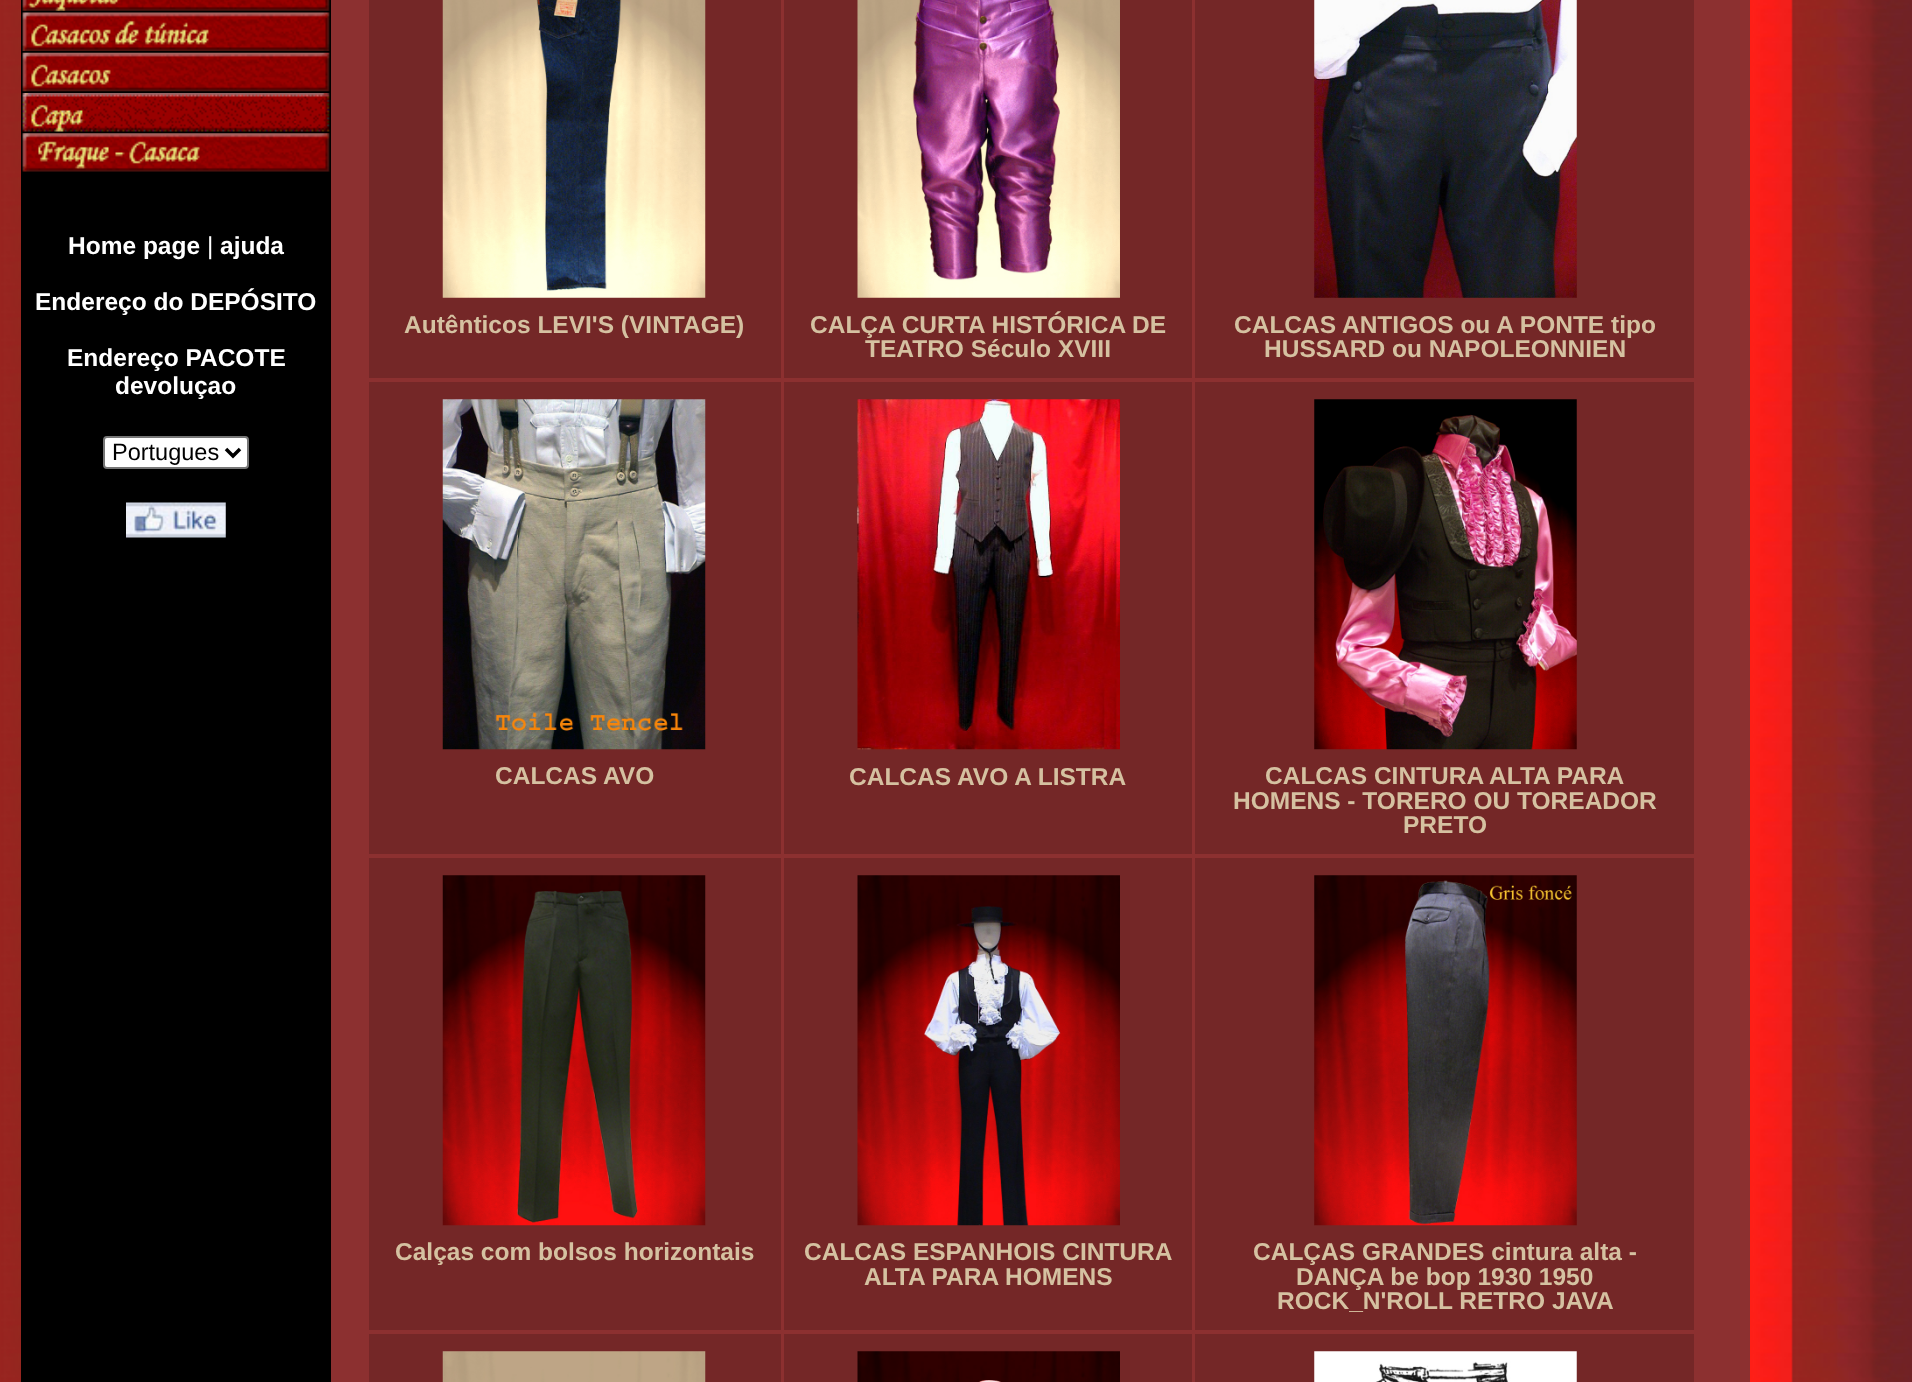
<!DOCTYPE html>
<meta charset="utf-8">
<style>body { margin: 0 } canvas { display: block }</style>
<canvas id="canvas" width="1912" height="1382"></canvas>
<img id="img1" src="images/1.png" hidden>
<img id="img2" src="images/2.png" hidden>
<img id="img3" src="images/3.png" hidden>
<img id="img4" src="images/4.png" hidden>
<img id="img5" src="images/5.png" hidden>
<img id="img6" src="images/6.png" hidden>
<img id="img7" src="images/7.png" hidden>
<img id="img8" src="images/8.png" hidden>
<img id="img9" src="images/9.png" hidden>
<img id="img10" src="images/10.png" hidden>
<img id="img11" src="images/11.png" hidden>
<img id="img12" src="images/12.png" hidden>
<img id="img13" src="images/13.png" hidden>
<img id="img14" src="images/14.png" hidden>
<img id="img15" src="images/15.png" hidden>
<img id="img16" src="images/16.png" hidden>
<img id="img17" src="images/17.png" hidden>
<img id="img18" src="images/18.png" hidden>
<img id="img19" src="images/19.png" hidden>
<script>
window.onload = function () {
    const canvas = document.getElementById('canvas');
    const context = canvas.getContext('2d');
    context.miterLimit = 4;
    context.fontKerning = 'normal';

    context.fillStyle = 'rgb(255, 255, 255)';
    context.fillRect(0, 0, 1912, 1382);
    context.drawImage(document.getElementById('img1'), 1, 0, 1911, 1382);
    context.fillStyle = 'rgb(152, 36, 31)';
    context.fillRect(0, 0, 1, 1382);
    context.fillStyle = 'rgb(0, 0, 0)';
    context.fillRect(21, 0, 310, 1382);
    context.drawImage(document.getElementById('img2'), 22, 0, 308, 11);
    context.drawImage(document.getElementById('img3'), 22, 12, 308, 39);
    context.drawImage(document.getElementById('img4'), 22, 52, 308, 40);
    context.drawImage(document.getElementById('img5'), 22, 93, 308, 39);
    context.drawImage(document.getElementById('img6'), 22, 133, 308, 39);
    context.fillStyle = 'rgba(0, 0, 0, 0.25)';
    context.fillRect(22, 171, 307, 1);
    context.fillStyle = 'rgb(255, 255, 255)';
    context.beginPath();
    context.roundRect(104, 437, 144, 31, 3);
    context.fill();
    context.strokeStyle = 'rgb(118, 118, 118)';
    context.lineWidth = 2;
    context.stroke();
    context.beginPath();
    context.moveTo(226, 449);
    context.lineTo(233, 456);
    context.lineTo(240, 449);
    context.strokeStyle = 'rgb(0, 0, 0)';
    context.lineWidth = 3.5;
    context.stroke();
    context.drawImage(document.getElementById('img7'), 126, 502, 100, 36);
    context.fillStyle = 'rgb(140, 48, 48)';
    context.fillRect(331, 0, 1419, 1382);
    context.fillStyle = 'rgb(116, 39, 39)';
    context.fillRect(369, 0, 412, 378);
    context.drawImage(document.getElementById('img8'), 442, 0, 264, 298);
    context.fillRect(784, 0, 408, 378);
    context.drawImage(document.getElementById('img9'), 857, 0, 263, 298);
    context.fillRect(1195, 0, 499, 378);
    context.drawImage(document.getElementById('img10'), 1314, 0, 263, 298);
    context.fillRect(369, 382, 412, 472);
    context.drawImage(document.getElementById('img11'), 442, 399, 264, 351);
    context.fillRect(784, 382, 408, 472);
    context.drawImage(document.getElementById('img12'), 857, 399, 263, 351);
    context.fillRect(1195, 382, 499, 472);
    context.drawImage(document.getElementById('img13'), 1314, 399, 263, 351);
    context.fillRect(369, 858, 412, 472);
    context.drawImage(document.getElementById('img14'), 442, 875, 264, 351);
    context.fillRect(784, 858, 408, 472);
    context.drawImage(document.getElementById('img15'), 857, 875, 263, 351);
    context.fillRect(1195, 858, 499, 472);
    context.drawImage(document.getElementById('img16'), 1314, 875, 263, 351);
    context.fillRect(369, 1334, 412, 48);
    context.drawImage(document.getElementById('img17'), 442, 1351, 264, 31);
    context.fillRect(784, 1334, 408, 48);
    context.drawImage(document.getElementById('img18'), 857, 1351, 263, 31);
    context.fillRect(1195, 1334, 499, 48);
    context.drawImage(document.getElementById('img19'), 1314, 1351, 263, 31);
    context.font = 'bold 24.5px Liberation Sans';
    context.fillStyle = 'rgb(255, 255, 255)';
    context.fillText('Home page', 68, 254);
    context.font = '24.5px Liberation Sans';
    context.fillText('|', 207, 254);
    context.font = 'bold 24.5px Liberation Sans';
    context.fillText('ajuda', 220, 254);
    context.fillText('Endereço do DEPÓSITO', 35, 310);
    context.fillText('Endereço PACOTE', 67, 366);
    context.fillText('devoluçao', 115, 394);
    context.font = '23.5px Liberation Sans';
    context.fillStyle = 'rgb(0, 0, 0)';
    context.fillText('Portugues', 112, 460);
    context.font = 'bold 24.5px Liberation Sans';
    context.fillStyle = 'rgb(213, 193, 161)';
    context.fillText('Autênticos LEVI\'S (VINTAGE)', 404, 333);
    context.fillText('CALÇA CURTA HISTÓRICA DE', 810, 333);
    context.fillText('TEATRO Século XVIII', 865, 357);
    context.fillText('CALCAS ANTIGOS ou A PONTE tipo', 1234, 333);
    context.fillText('HUSSARD ou NAPOLEONNIEN', 1264, 357);
    context.fillText('CALCAS AVO', 495, 784);
    context.fillText('CALCAS AVO A LISTRA', 849, 785);
    context.fillText('CALCAS CINTURA ALTA PARA', 1265, 784);
    context.fillText('HOMENS - TORERO OU TOREADOR', 1233, 809);
    context.fillText('PRETO', 1403, 833);
    context.fillText('Calças com bolsos horizontais', 395, 1260);
    context.fillText('CALCAS ESPANHOIS CINTURA', 804, 1260);
    context.fillText('ALTA PARA HOMENS', 864, 1285);
    context.fillText('CALÇAS GRANDES cintura alta -', 1253, 1260);
    context.fillText('DANÇA be bop 1930 1950', 1296, 1285);
    context.fillText('ROCK_N\'ROLL RETRO JAVA', 1277, 1309);
};
</script>
